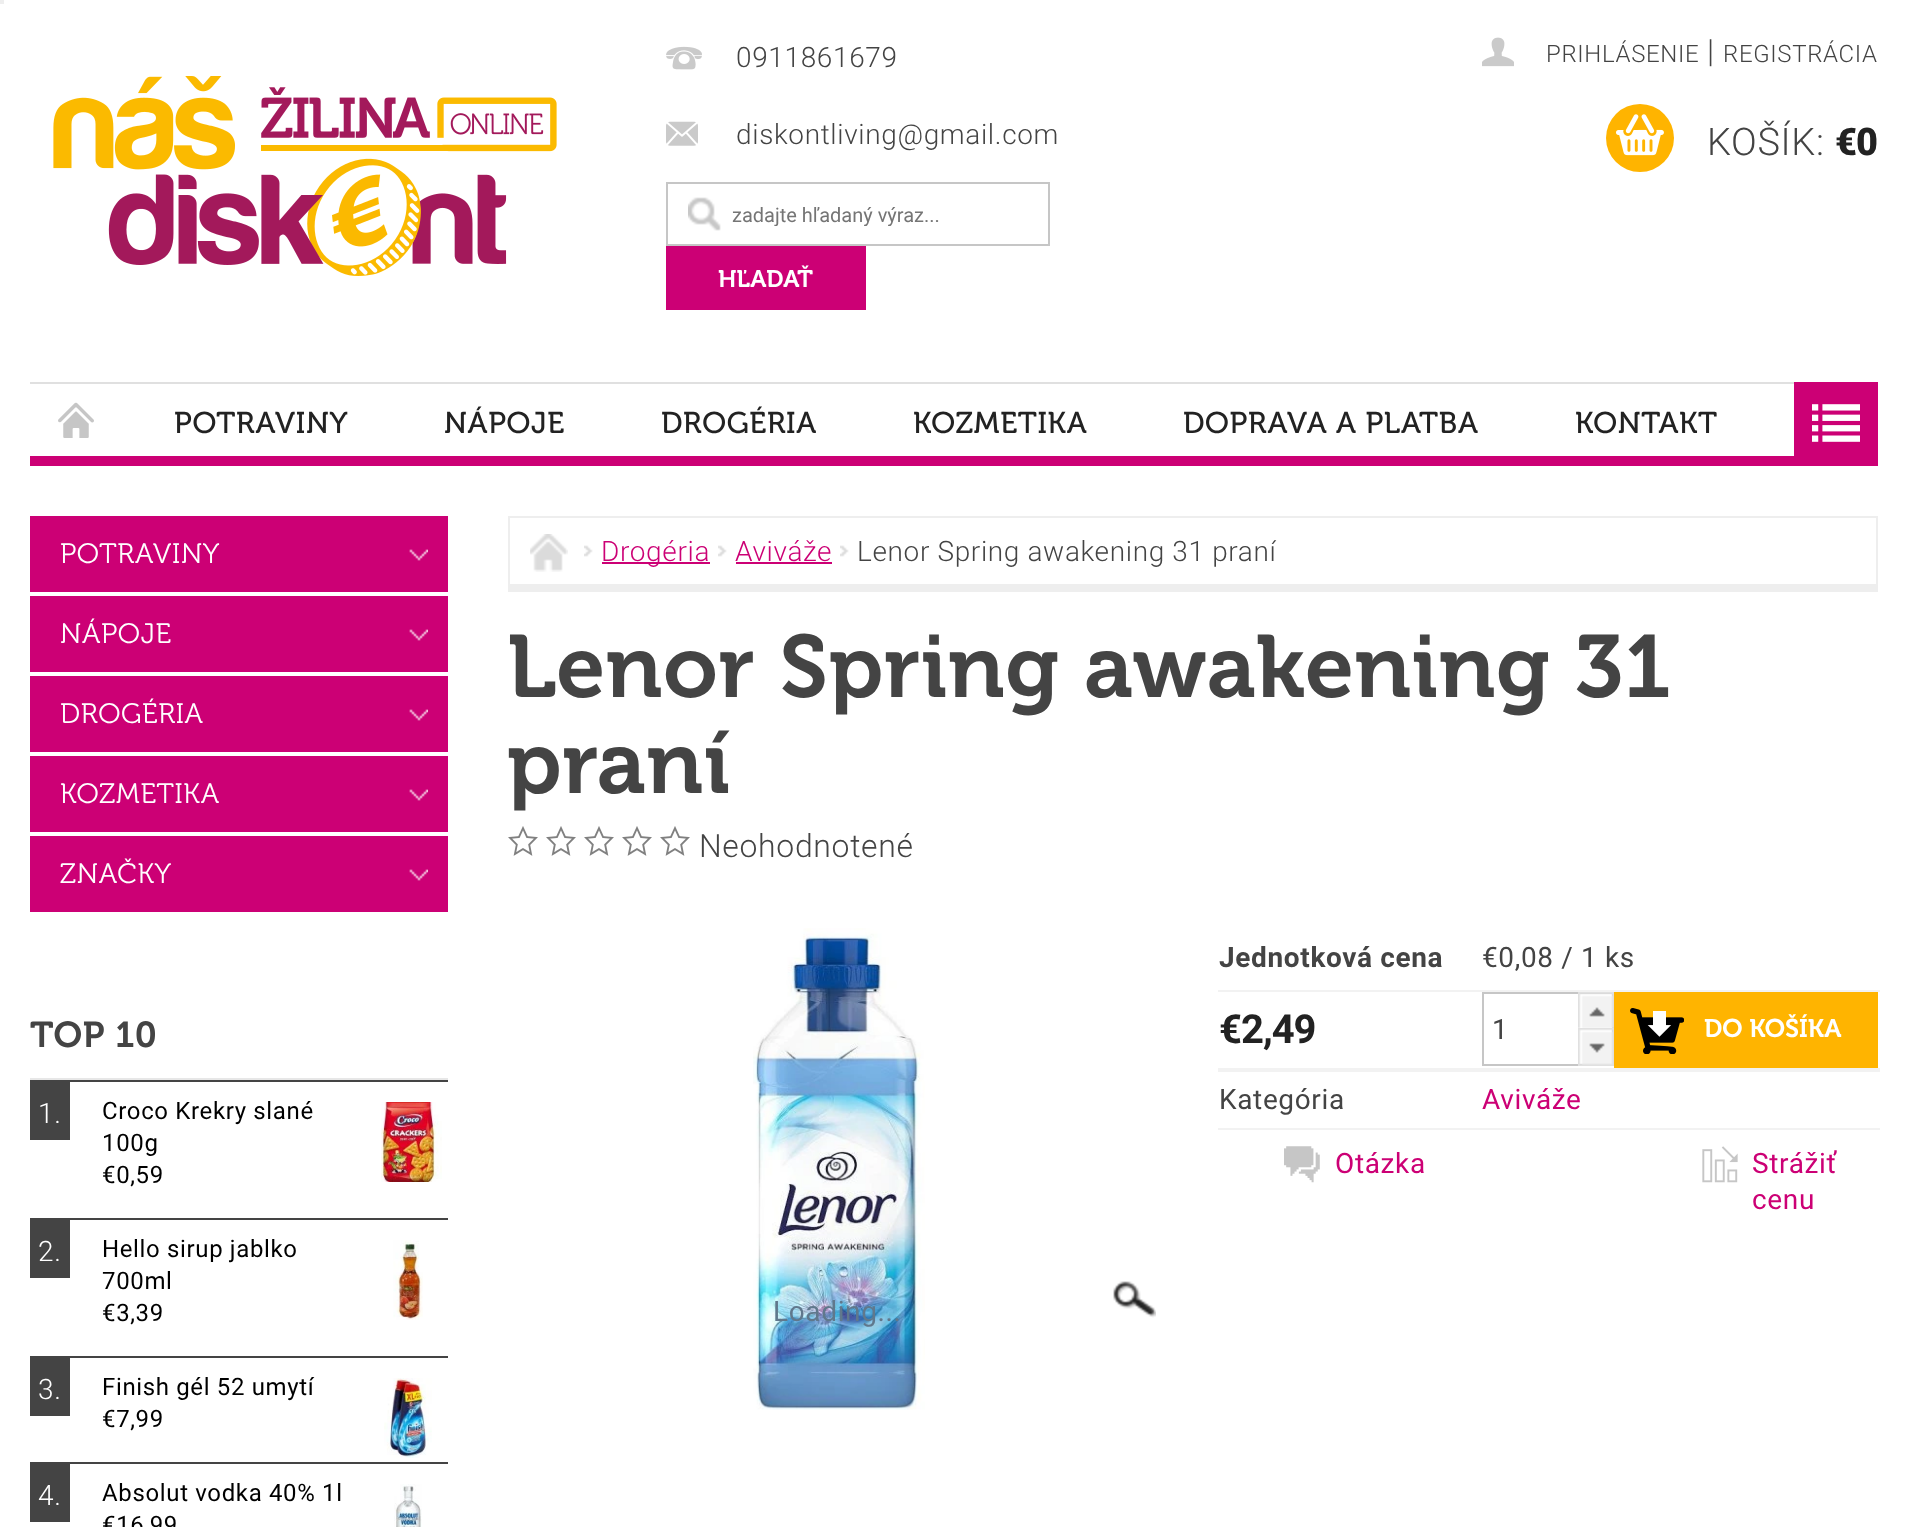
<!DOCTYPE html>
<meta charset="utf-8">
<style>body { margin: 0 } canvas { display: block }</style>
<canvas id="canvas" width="1907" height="1527"></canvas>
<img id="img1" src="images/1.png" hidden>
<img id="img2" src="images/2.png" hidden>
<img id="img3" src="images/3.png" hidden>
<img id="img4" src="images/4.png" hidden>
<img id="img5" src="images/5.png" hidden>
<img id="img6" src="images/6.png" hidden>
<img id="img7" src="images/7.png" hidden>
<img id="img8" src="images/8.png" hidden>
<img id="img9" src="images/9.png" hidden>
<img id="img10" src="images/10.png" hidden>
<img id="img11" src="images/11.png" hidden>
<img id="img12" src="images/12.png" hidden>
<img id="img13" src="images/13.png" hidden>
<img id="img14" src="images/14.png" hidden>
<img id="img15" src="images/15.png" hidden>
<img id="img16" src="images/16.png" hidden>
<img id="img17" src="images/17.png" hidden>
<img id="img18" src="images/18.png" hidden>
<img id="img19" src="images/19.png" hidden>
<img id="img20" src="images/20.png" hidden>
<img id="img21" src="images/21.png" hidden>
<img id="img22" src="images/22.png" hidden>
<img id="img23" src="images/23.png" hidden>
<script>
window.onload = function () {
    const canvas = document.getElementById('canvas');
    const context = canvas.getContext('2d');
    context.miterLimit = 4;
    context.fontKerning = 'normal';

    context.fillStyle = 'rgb(255, 255, 255)';
    context.fillRect(0, 0, 1907, 1527);
    context.fillStyle = 'rgb(238, 238, 238)';
    context.fillRect(0, 0, 4, 4);
    context.fillStyle = 'rgb(204, 0, 117)';
    context.fillRect(30, 456, 1764, 10);
    context.drawImage(document.getElementById('img1'), 53, 76, 504, 200);
    context.drawImage(document.getElementById('img2'), 666, 46, 36, 24);
    context.drawImage(document.getElementById('img3'), 666, 121, 32, 25);
    context.drawImage(document.getElementById('img4'), 688, 197, 33, 34);
    context.strokeStyle = 'rgb(198, 198, 198)';
    context.lineWidth = 2;
    context.strokeRect(667, 183, 382, 62);
    context.fillRect(666, 246, 200, 64);
    context.drawImage(document.getElementById('img5'), 1482, 37, 32, 30);
    context.fillStyle = 'rgb(255, 180, 0)';
    context.beginPath();
    context.arc(1640, 138, 34, 0, 2 * Math.PI);
    context.fill();
    context.drawImage(document.getElementById('img6'), 1616, 114, 48, 42);
    context.fillStyle = 'rgb(224, 224, 224)';
    context.fillRect(30, 382, 1764, 2);
    context.drawImage(document.getElementById('img7'), 58, 402, 36, 36);
    context.fillStyle = 'rgb(204, 0, 117)';
    context.fillRect(1794, 382, 84, 84);
    context.drawImage(document.getElementById('img8'), 1812, 404, 48, 38);
    context.fillRect(30, 516, 418, 76);
    context.drawImage(document.getElementById('img9'), 409, 549, 19, 12);
    context.fillRect(30, 596, 418, 76);
    context.drawImage(document.getElementById('img9'), 409, 629, 19, 12);
    context.fillRect(30, 676, 418, 76);
    context.drawImage(document.getElementById('img9'), 409, 709, 19, 12);
    context.fillRect(30, 756, 418, 76);
    context.drawImage(document.getElementById('img9'), 409, 789, 19, 12);
    context.fillRect(30, 836, 418, 76);
    context.drawImage(document.getElementById('img9'), 409, 869, 19, 12);
    context.fillStyle = 'rgb(231, 231, 231)';
    context.fillRect(30, 1078, 418, 2);
    context.fillStyle = 'rgb(68, 68, 68)';
    context.fillRect(70, 1080, 378, 2);
    context.fillRect(30, 1080, 40, 60);
    context.drawImage(document.getElementById('img10'), 381, 1102, 61, 80);
    context.fillRect(70, 1218, 378, 2);
    context.fillRect(30, 1218, 40, 60);
    context.drawImage(document.getElementById('img11'), 393, 1240, 30, 80);
    context.fillRect(70, 1356, 378, 2);
    context.fillRect(30, 1356, 40, 60);
    context.drawImage(document.getElementById('img12'), 384, 1378, 48, 80);
    context.fillRect(70, 1462, 378, 2);
    context.fillRect(30, 1462, 40, 60);
    context.drawImage(document.getElementById('img13'), 394, 1484, 28, 43);
    context.fillStyle = 'rgb(238, 238, 238)';
    context.fillRect(508, 516, 1370, 2);
    context.fillRect(1876, 516, 2, 76);
    context.fillRect(508, 584, 1370, 8);
    context.fillRect(508, 516, 2, 76);
    context.drawImage(document.getElementById('img14'), 530, 534, 38, 38);
    context.drawImage(document.getElementById('img15'), 584, 545, 9, 12);
    context.fillStyle = 'rgb(204, 0, 117)';
    context.fillRect(602, 562, 108, 2);
    context.drawImage(document.getElementById('img15'), 718, 545, 9, 12);
    context.fillRect(736, 562, 96, 2);
    context.drawImage(document.getElementById('img15'), 840, 545, 9, 12);
    context.drawImage(document.getElementById('img16'), 508, 826, 30, 30);
    context.drawImage(document.getElementById('img16'), 546, 826, 30, 30);
    context.drawImage(document.getElementById('img16'), 584, 826, 30, 30);
    context.drawImage(document.getElementById('img16'), 622, 826, 30, 30);
    context.drawImage(document.getElementById('img16'), 660, 826, 30, 30);
    context.fillStyle = 'rgb(242, 242, 242)';
    context.fillRect(1218, 990, 662, 2);
    context.fillRect(1218, 1068, 662, 4);
    context.strokeRect(1483, 993, 130, 72);
    context.drawImage(document.getElementById('img17'), 1578, 992, 36, 36);
    context.drawImage(document.getElementById('img18'), 1578, 1028, 36, 38);
    context.fillStyle = 'rgb(255, 180, 0)';
    context.fillRect(1614, 992, 264, 76);
    context.drawImage(document.getElementById('img19'), 1630, 1008, 54, 46);
    context.fillStyle = 'rgb(242, 242, 242)';
    context.fillRect(1218, 1128, 662, 2);
    context.drawImage(document.getElementById('img20'), 1284, 1146, 36, 37);
    context.drawImage(document.getElementById('img21'), 1702, 1146, 36, 37);
    context.drawImage(document.getElementById('img22'), 753, 928, 172, 482);
    context.drawImage(document.getElementById('img23'), 1113, 1281, 43, 37);
    context.letterSpacing = '0.65px';
    context.font = '300 28px Roboto';
    context.fillStyle = 'rgb(68, 68, 68)';
    context.fillText('0911861679', 736, 67);
    context.fillText('diskontliving@gmail.com', 736, 144);
    context.save();
    context.beginPath();
    context.rect(732, 204, 292, 22);
    context.clip();
    context.letterSpacing = '0px';
    context.font = '20px Roboto';
    context.fillStyle = 'rgb(117, 117, 117)';
    context.fillText('zadajte hľadaný výraz...', 732, 222);
    context.restore();
    context.letterSpacing = '0px';
    context.font = '600 24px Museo';
    context.fillStyle = 'rgb(255, 255, 255)';
    context.fillText('HĽADAŤ', 718, 287);
    context.letterSpacing = '0.65px';
    context.font = '300 24px Roboto';
    context.fillStyle = 'rgb(68, 68, 68)';
    context.fillText('PRIHLÁSENIE', 1546, 62);
    context.font = '300 32px Roboto';
    context.fillText('|', 1707, 62);
    context.font = '300 24px Roboto';
    context.fillText('REGISTRÁCIA', 1723, 62);
    context.font = '300 38px Roboto';
    context.fillText('KOŠÍK:', 1707, 155);
    context.letterSpacing = '-1px';
    context.font = '900 38px Roboto';
    context.fillStyle = 'rgb(34, 34, 34)';
    context.fillText('€0', 1835, 155);
    context.letterSpacing = '0.65px';
    context.font = '30px Museo';
    context.fillText('POTRAVINY', 174, 433);
    context.fillText('NÁPOJE', 444, 433);
    context.fillText('DROGÉRIA', 661, 433);
    context.fillText('KOZMETIKA', 913, 433);
    context.fillText('DOPRAVA A PLATBA', 1183, 433);
    context.fillText('KONTAKT', 1575, 433);
    context.font = '28px "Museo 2"';
    context.fillStyle = 'rgb(255, 255, 255)';
    context.fillText('POTRAVINY', 60, 563);
    context.fillText('NÁPOJE', 60, 643);
    context.fillText('DROGÉRIA', 60, 723);
    context.fillText('KOZMETIKA', 60, 803);
    context.fillText('ZNAČKY', 60, 883);
    context.font = '600 36px Museo';
    context.fillStyle = 'rgb(68, 68, 68)';
    context.fillText('TOP 10', 30, 1047);
    context.font = '300 28px Roboto';
    context.fillStyle = 'rgb(255, 255, 255)';
    context.fillText('1.', 38, 1123);
    context.font = '24px Roboto';
    context.fillStyle = 'rgb(0, 0, 0)';
    context.fillText('Croco Krekry slané', 102, 1119);
    context.fillText('100g', 102, 1151);
    context.fillText('€0,59', 102, 1183);
    context.font = '300 28px Roboto';
    context.fillStyle = 'rgb(255, 255, 255)';
    context.fillText('2.', 38, 1261);
    context.font = '24px Roboto';
    context.fillStyle = 'rgb(0, 0, 0)';
    context.fillText('Hello sirup jablko', 102, 1257);
    context.fillText('700ml', 102, 1289);
    context.fillText('€3,39', 102, 1321);
    context.font = '300 28px Roboto';
    context.fillStyle = 'rgb(255, 255, 255)';
    context.fillText('3.', 38, 1399);
    context.font = '24px Roboto';
    context.fillStyle = 'rgb(0, 0, 0)';
    context.fillText('Finish gél 52 umytí', 102, 1395);
    context.fillText('€7,99', 102, 1427);
    context.font = '300 28px Roboto';
    context.fillStyle = 'rgb(255, 255, 255)';
    context.fillText('4.', 38, 1505);
    context.font = '24px Roboto';
    context.fillStyle = 'rgb(0, 0, 0)';
    context.fillText('Absolut vodka 40% 1l', 102, 1501);
    context.fillText('€16,99', 102, 1533);
    context.font = '300 28px Roboto';
    context.fillStyle = 'rgb(204, 0, 117)';
    context.fillText('Drogéria', 601, 561);
    context.fillText('Aviváže', 735, 561);
    context.fillStyle = 'rgb(68, 68, 68)';
    context.fillText('Lenor Spring awakening 31 praní', 857, 561);
    context.font = '600 88px Museo';
    context.fillText('Lenor Spring awakening 31', 507, 697);
    context.fillText('praní', 507, 793);
    context.font = '300 32px Roboto';
    context.fillText('Neohodnotené', 699, 857);
    context.font = 'bold 28px Roboto';
    context.fillText('Jednotková cena', 1219, 967);
    context.font = '28px Roboto';
    context.fillText('€0,08 / 1 ks', 1482, 967);
    context.letterSpacing = '-1px';
    context.font = 'bold 40px Roboto';
    context.fillStyle = 'rgb(34, 34, 34)';
    context.fillText('€2,49', 1219, 1043);
    context.letterSpacing = '0px';
    context.font = '28px Roboto';
    context.fillStyle = 'rgb(68, 68, 68)';
    context.fillText('1', 1492, 1039);
    context.font = '600 25.5px Museo';
    context.fillStyle = 'rgb(255, 255, 255)';
    context.fillText('DO KOŠÍKA', 1704, 1037);
    context.letterSpacing = '0.65px';
    context.font = '28px Roboto';
    context.fillStyle = 'rgb(68, 68, 68)';
    context.fillText('Kategória', 1219, 1109);
    context.fillStyle = 'rgb(204, 0, 117)';
    context.fillText('Aviváže', 1482, 1109);
    context.fillText('Otázka', 1335, 1173);
    context.fillText('Strážiť', 1752, 1173);
    context.fillText('cenu', 1752, 1209);
    context.fillStyle = 'rgb(96, 120, 140)';
    context.fillText('Loading...', 773, 1321);
};
</script>
